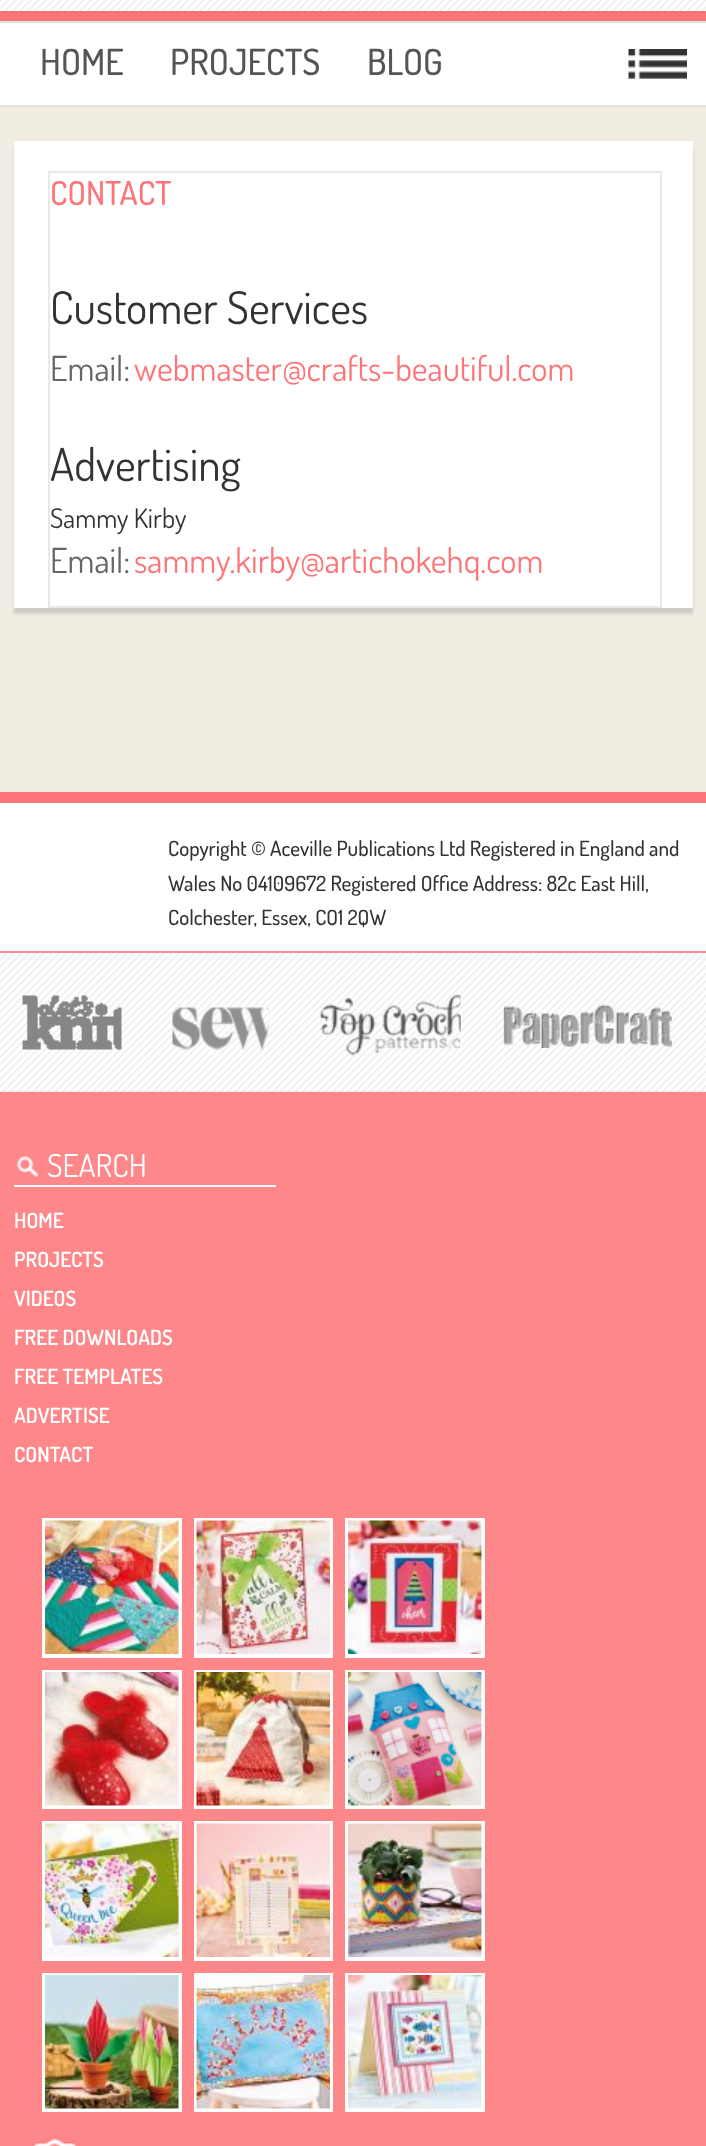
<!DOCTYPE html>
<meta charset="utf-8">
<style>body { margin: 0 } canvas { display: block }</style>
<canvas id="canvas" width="706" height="2146"></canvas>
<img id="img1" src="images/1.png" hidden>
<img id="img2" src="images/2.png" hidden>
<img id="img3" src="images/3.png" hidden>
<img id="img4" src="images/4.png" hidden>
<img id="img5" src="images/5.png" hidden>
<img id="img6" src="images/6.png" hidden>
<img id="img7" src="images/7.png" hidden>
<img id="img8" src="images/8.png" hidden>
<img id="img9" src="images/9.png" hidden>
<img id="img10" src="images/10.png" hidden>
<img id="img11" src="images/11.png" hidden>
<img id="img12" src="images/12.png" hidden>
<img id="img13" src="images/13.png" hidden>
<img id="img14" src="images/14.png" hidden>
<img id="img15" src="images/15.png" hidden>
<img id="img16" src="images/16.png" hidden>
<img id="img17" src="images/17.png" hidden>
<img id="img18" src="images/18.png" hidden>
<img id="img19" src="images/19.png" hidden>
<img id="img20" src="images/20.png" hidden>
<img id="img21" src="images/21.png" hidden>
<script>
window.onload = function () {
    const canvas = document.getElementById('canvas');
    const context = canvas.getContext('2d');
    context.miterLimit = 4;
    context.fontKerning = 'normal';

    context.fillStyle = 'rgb(241, 237, 226)';
    context.fillRect(0, 0, 706, 2146);
    context.drawImage(document.getElementById('img1'), 0, 0, 706, 11);
    context.fillStyle = 'rgb(253, 117, 120)';
    context.fillRect(0, 11, 706, 10);
    context.fillStyle = 'rgb(255, 255, 255)';
    context.fillRect(0, 23, 706, 82);
    context.fillStyle = 'rgb(225, 225, 225)';
    context.fillRect(0, 21, 706, 2);
    context.fillRect(0, 105, 706, 2);
    context.drawImage(document.getElementById('img2'), 628, 49, 59, 30);
    context.fillStyle = 'rgb(207, 204, 197)';
    context.filter = 'blur(1.5px)';
    context.beginPath();
    context.rect(14, 147, 679, 467);
    context.fill();
    context.filter = 'none';
    context.fillStyle = 'rgb(255, 255, 255)';
    context.fillRect(14, 141, 679, 467);
    context.strokeStyle = 'rgb(233, 232, 230)';
    context.lineWidth = 2;
    context.strokeRect(49, 172, 612, 435);
    context.fillRect(0, 803, 706, 148);
    context.fillStyle = 'rgb(253, 117, 120)';
    context.fillRect(0, 792, 706, 11);
    context.drawImage(document.getElementById('img3'), 0, 950, 706, 142);
    context.fillStyle = 'rgb(254, 135, 138)';
    context.fillRect(0, 951, 706, 2);
    context.drawImage(document.getElementById('img4'), 22, 995, 100, 55);
    context.drawImage(document.getElementById('img5'), 172, 1007, 97, 43);
    context.drawImage(document.getElementById('img6'), 318, 994, 143, 62);
    context.drawImage(document.getElementById('img7'), 503, 1004, 169, 44);
    context.fillRect(0, 1092, 706, 1054);
    context.drawImage(document.getElementById('img8'), 16, 1156, 23, 21);
    context.fillStyle = 'rgb(255, 255, 255)';
    context.fillRect(14, 1185, 262, 2);
    context.fillRect(42, 1518, 140, 140);
    context.drawImage(document.getElementById('img9'), 45, 1520, 134, 134);
    context.fillRect(194, 1518, 139, 140);
    context.drawImage(document.getElementById('img10'), 196, 1520, 134, 134);
    context.fillRect(345, 1518, 140, 140);
    context.drawImage(document.getElementById('img11'), 348, 1520, 134, 134);
    context.fillRect(42, 1670, 140, 139);
    context.drawImage(document.getElementById('img12'), 45, 1672, 134, 134);
    context.fillRect(194, 1670, 139, 139);
    context.drawImage(document.getElementById('img13'), 196, 1672, 134, 134);
    context.fillRect(345, 1670, 140, 139);
    context.drawImage(document.getElementById('img14'), 348, 1672, 134, 134);
    context.fillRect(42, 1821, 140, 140);
    context.drawImage(document.getElementById('img15'), 45, 1823, 134, 134);
    context.fillRect(194, 1821, 139, 140);
    context.drawImage(document.getElementById('img16'), 196, 1823, 134, 134);
    context.fillRect(345, 1821, 140, 140);
    context.drawImage(document.getElementById('img17'), 348, 1823, 134, 134);
    context.fillRect(42, 1973, 140, 139);
    context.drawImage(document.getElementById('img18'), 45, 1975, 134, 134);
    context.fillRect(194, 1973, 139, 139);
    context.drawImage(document.getElementById('img19'), 196, 1975, 134, 134);
    context.fillRect(345, 1973, 140, 139);
    context.drawImage(document.getElementById('img20'), 348, 1975, 134, 134);
    context.drawImage(document.getElementById('img21'), 32, 2137, 47, 9);
    context.font = '500 36px Dosis';
    context.fillStyle = 'rgb(85, 85, 85)';
    context.fillText('HOME', 40, 75);
    context.fillText('PROJECTS', 170, 75);
    context.fillText('BLOG', 367, 75);
    context.font = '500 33px Dosis';
    context.fillStyle = 'rgb(253, 117, 120)';
    context.fillText('CONTACT', 50, 205);
    context.font = '45px Dosis';
    context.fillStyle = 'rgb(51, 51, 51)';
    context.fillText('Customer Services', 50, 324);
    context.font = '34.5px Dosis';
    context.fillStyle = 'rgb(102, 102, 102)';
    context.fillText('Email:', 50, 381);
    context.fillStyle = 'rgb(253, 117, 120)';
    context.fillText('webmaster@crafts-beautiful.com', 134, 381);
    context.font = '45px Dosis';
    context.fillStyle = 'rgb(51, 51, 51)';
    context.fillText('Advertising', 50, 481);
    context.font = '27px Dosis';
    context.fillText('Sammy Kirby', 50, 528);
    context.font = '34.5px Dosis';
    context.fillStyle = 'rgb(102, 102, 102)';
    context.fillText('Email:', 50, 573);
    context.fillStyle = 'rgb(253, 117, 120)';
    context.fillText('sammy.kirby@artichokehq.com', 134, 573);
    context.font = '500 21px Dosis';
    context.fillStyle = 'rgb(51, 51, 51)';
    context.fillText('Copyright © Aceville Publications Ltd Registered in England and', 168, 856);
    context.fillText('Wales No 04109672 Registered Office Address: 82c East Hill,', 168, 891);
    context.fillText('Colchester, Essex, CO1 2QW', 168, 925);
    context.font = '31.5px Dosis';
    context.fillStyle = 'rgb(255, 255, 255)';
    context.fillText('SEARCH', 47, 1177);
    context.font = '600 21px Dosis';
    context.fillText('HOME', 14, 1228);
    context.fillText('PROJECTS', 14, 1267);
    context.fillText('VIDEOS', 14, 1306);
    context.fillText('FREE DOWNLOADS', 14, 1345);
    context.fillText('FREE TEMPLATES', 14, 1384);
    context.fillText('ADVERTISE', 14, 1423);
    context.fillText('CONTACT', 14, 1462);
};
</script>
